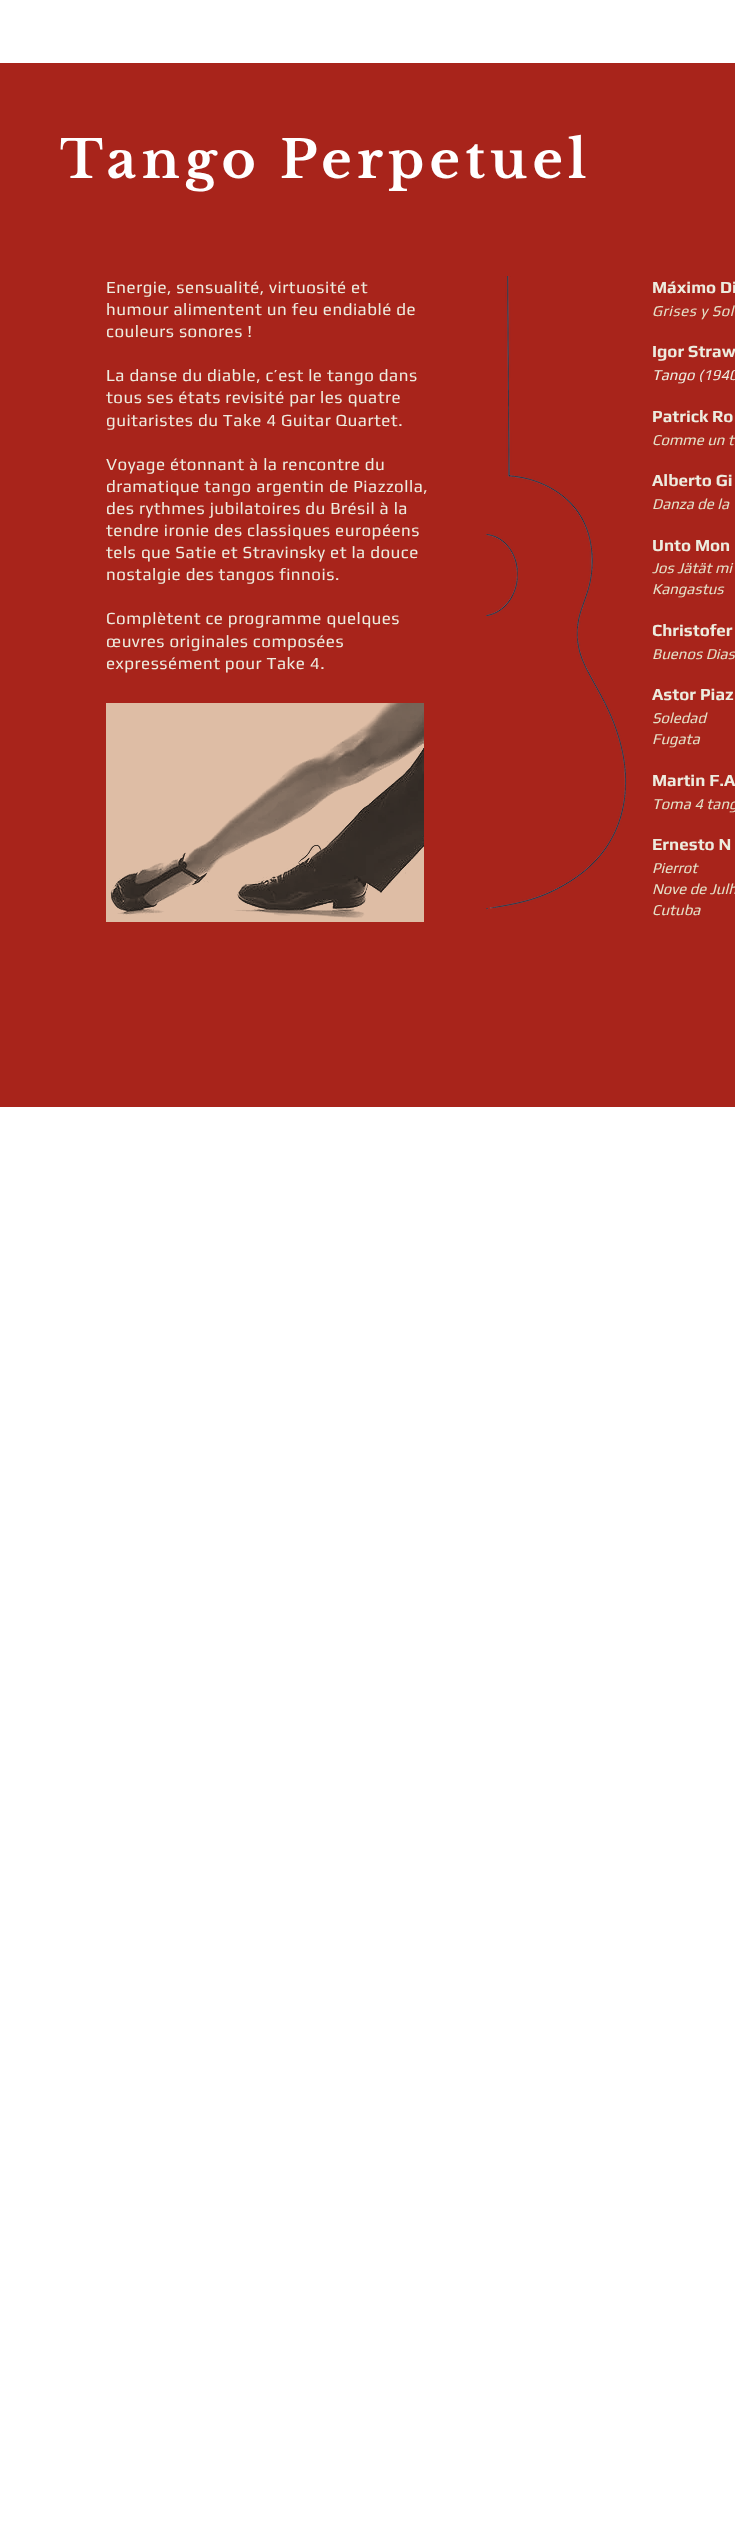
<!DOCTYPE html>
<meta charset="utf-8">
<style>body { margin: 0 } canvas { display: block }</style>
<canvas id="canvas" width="735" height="2545"></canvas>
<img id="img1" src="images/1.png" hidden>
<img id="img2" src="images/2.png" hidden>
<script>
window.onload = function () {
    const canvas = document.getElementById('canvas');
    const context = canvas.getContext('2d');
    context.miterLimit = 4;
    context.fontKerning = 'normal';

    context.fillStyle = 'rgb(255, 255, 255)';
    context.fillRect(0, 0, 735, 2545);
    context.fillStyle = 'rgb(168, 36, 27)';
    context.fillRect(0, 63, 735, 1044);
    context.drawImage(document.getElementById('img1'), 486, 276, 141, 634);
    context.drawImage(document.getElementById('img2'), 106, 703, 318, 219);
    context.letterSpacing = '5.25px';
    context.font = 'bold 52px Libre Baskerville';
    context.fillStyle = 'rgb(255, 255, 255)';
    context.fillText('Tango Perpetuel', 60, 178);
    context.letterSpacing = '0.5px';
    context.font = '17px Play';
    context.fillStyle = 'rgb(237, 236, 223)';
    context.fillText('Energie, sensualité, virtuosité et', 106, 293);
    context.fillText('humour alimentent un feu endiablé de', 106, 315);
    context.fillText('couleurs sonores !', 106, 337);
    context.fillText('La danse du diable, c’est le tango dans', 106, 381);
    context.fillText('tous ses états revisité par les quatre', 106, 403);
    context.fillText('guitaristes du Take 4 Guitar Quartet.', 106, 426);
    context.fillText('Voyage étonnant à la rencontre du', 106, 470);
    context.fillText('dramatique tango argentin de Piazzolla,', 106, 492);
    context.fillText('des rythmes jubilatoires du Brésil à la', 106, 514);
    context.fillText('tendre ironie des classiques européens', 106, 536);
    context.fillText('tels que Satie et Stravinsky et la douce', 106, 558);
    context.fillText('nostalgie des tangos finnois.', 106, 580);
    context.fillText('Complètent ce programme quelques', 106, 624);
    context.fillText('œuvres originales composées', 106, 647);
    context.fillText('expressément pour Take 4.', 106, 669);
    context.letterSpacing = '0px';
    context.font = 'bold 17px Play';
    context.fillText('Máximo Di', 652, 293);
    context.letterSpacing = '0.5px';
    context.font = 'italic 15px Play';
    context.fillStyle = 'rgb(228, 224, 199)';
    context.fillText('Grises y Sol', 652, 316);
    context.letterSpacing = '0px';
    context.font = 'bold 17px Play';
    context.fillStyle = 'rgb(237, 236, 223)';
    context.fillText('Igor Straw', 652, 357);
    context.font = 'italic 15px Play';
    context.fillText('Tango (1940', 652, 380);
    context.font = 'bold 17px Play';
    context.fillText('Patrick Ro', 652, 422);
    context.font = 'italic 15px Play';
    context.fillStyle = 'rgb(228, 224, 199)';
    context.fillText('Comme un t', 652, 445);
    context.font = 'bold 17px Play';
    context.fillStyle = 'rgb(237, 236, 223)';
    context.fillText('Alberto Gi', 652, 486);
    context.font = 'italic 15px Play';
    context.fillStyle = 'rgb(228, 224, 199)';
    context.fillText('Danza de la', 652, 509);
    context.font = 'bold 17px Play';
    context.fillStyle = 'rgb(237, 236, 223)';
    context.fillText('Unto Mon', 652, 551);
    context.font = 'italic 15px Play';
    context.fillStyle = 'rgb(228, 224, 199)';
    context.fillText('Jos Jätät mi', 652, 573);
    context.fillText('Kangastus', 652, 594);
    context.font = 'bold 17px Play';
    context.fillStyle = 'rgb(237, 236, 223)';
    context.fillText('Christofer', 652, 636);
    context.font = 'italic 15px Play';
    context.fillStyle = 'rgb(228, 224, 199)';
    context.fillText('Buenos Dias', 652, 659);
    context.font = 'bold 17px Play';
    context.fillStyle = 'rgb(237, 236, 223)';
    context.fillText('Astor Piaz', 652, 700);
    context.font = 'italic 15px Play';
    context.fillStyle = 'rgb(228, 224, 199)';
    context.fillText('Soledad', 652, 723);
    context.fillText('Fugata', 652, 744);
    context.font = 'bold 17px Play';
    context.fillStyle = 'rgb(237, 236, 223)';
    context.fillText('Martin F.A', 652, 786);
    context.font = 'italic 15px Play';
    context.fillStyle = 'rgb(228, 224, 199)';
    context.fillText('Toma 4 tang', 652, 809);
    context.font = 'bold 17px Play';
    context.fillStyle = 'rgb(237, 236, 223)';
    context.fillText('Ernesto N', 652, 850);
    context.font = 'italic 15px Play';
    context.fillStyle = 'rgb(228, 224, 199)';
    context.fillText('Pierrot', 652, 873);
    context.fillText('Nove de Julh', 652, 894);
    context.fillText('Cutuba', 652, 915);
};
</script>
